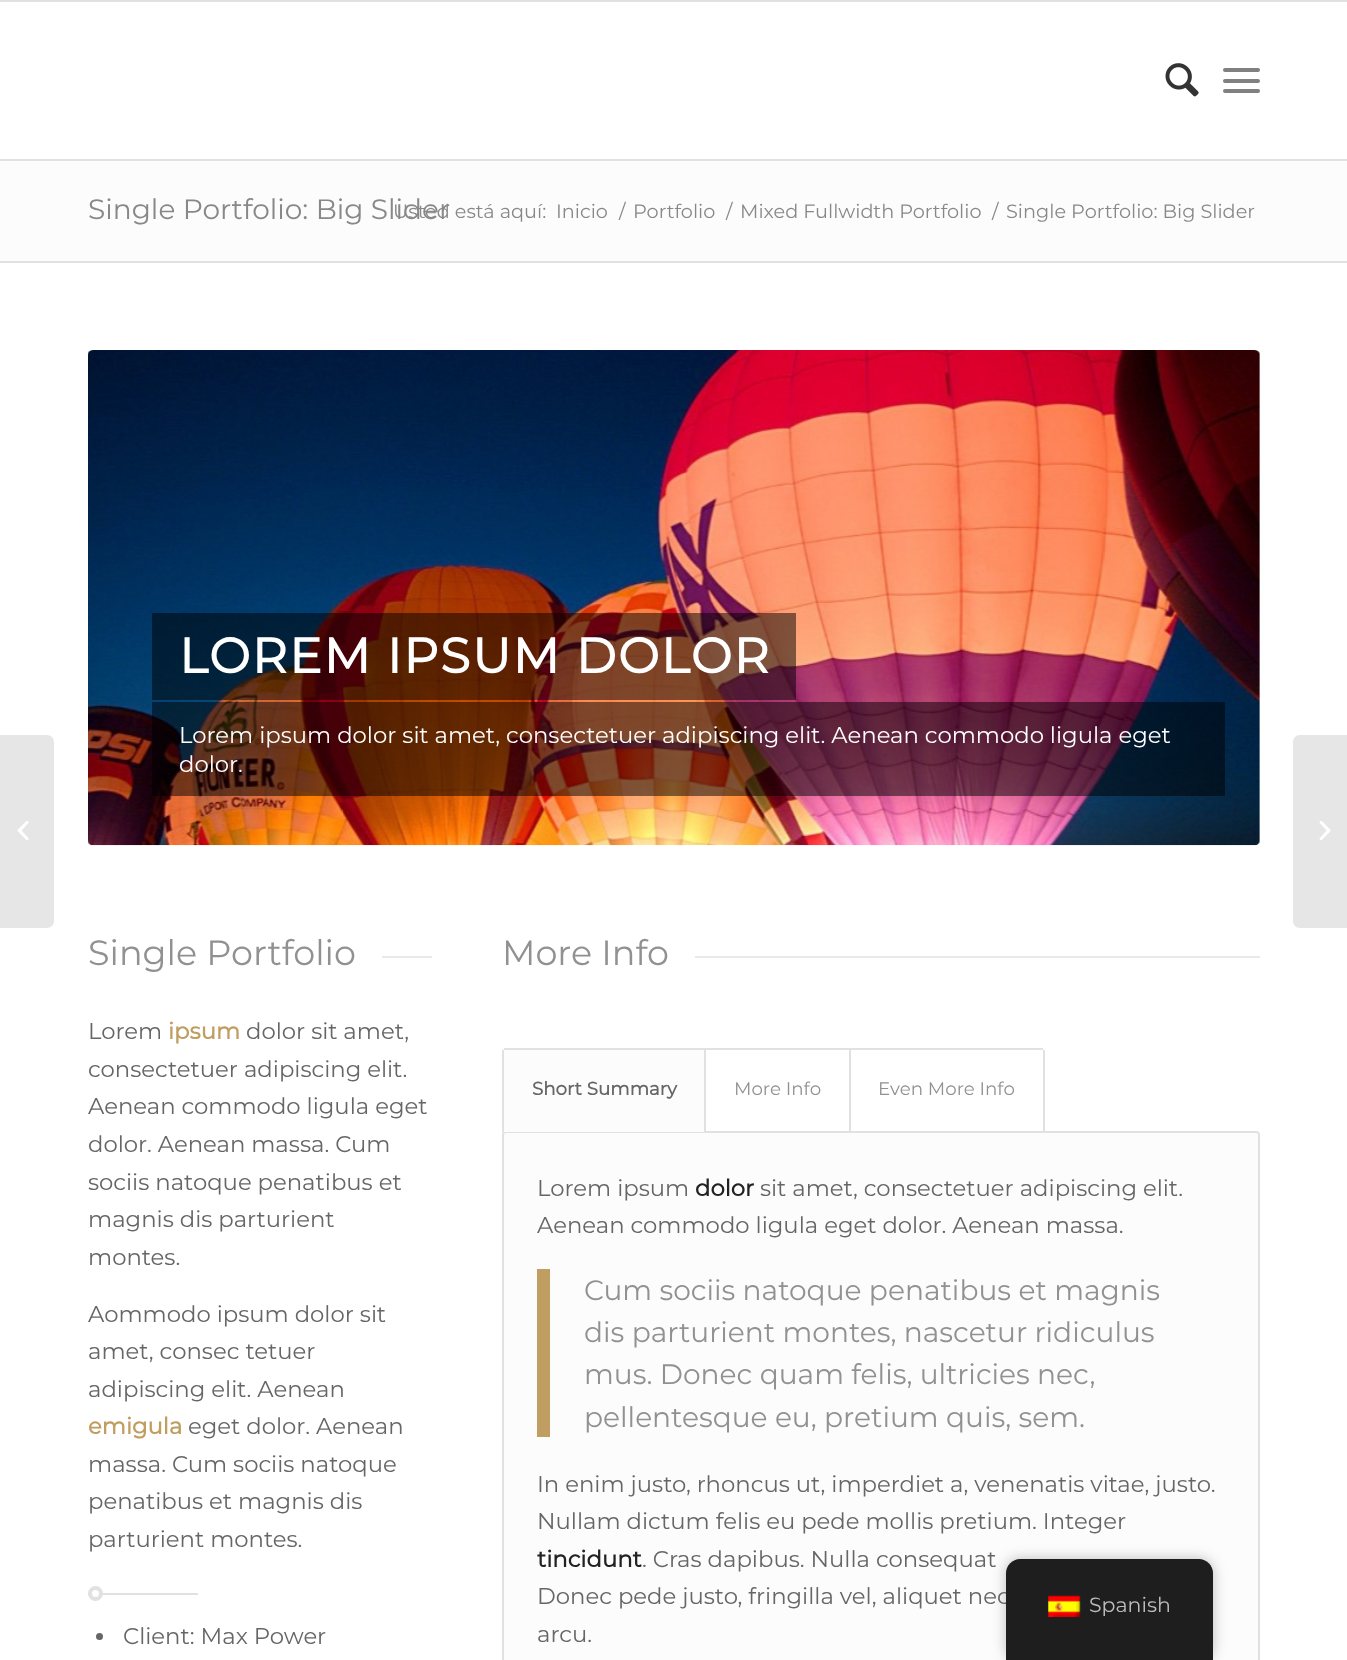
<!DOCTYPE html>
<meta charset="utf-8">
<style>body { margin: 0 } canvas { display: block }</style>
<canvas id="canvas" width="1347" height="1660"></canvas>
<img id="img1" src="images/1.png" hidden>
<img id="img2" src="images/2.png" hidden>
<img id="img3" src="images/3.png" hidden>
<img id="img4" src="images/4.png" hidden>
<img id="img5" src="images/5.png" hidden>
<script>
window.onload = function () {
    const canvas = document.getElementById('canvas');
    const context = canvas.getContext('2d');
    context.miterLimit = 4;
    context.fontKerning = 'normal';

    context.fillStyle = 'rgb(255, 255, 255)';
    context.fillRect(0, 0, 1347, 1660);
    context.fillStyle = 'rgb(225, 225, 225)';
    context.fillRect(0, 0, 1347, 2);
    context.fillRect(0, 159, 1347, 2);
    context.drawImage(document.getElementById('img1'), 1165, 63, 34, 34);
    context.fillStyle = 'rgb(128, 128, 128)';
    context.beginPath();
    context.roundRect(1223, 79, 37, 4, 2);
    context.fill();
    context.beginPath();
    context.roundRect(1223, 68, 37, 4, 2);
    context.fill();
    context.beginPath();
    context.roundRect(1223, 89, 37, 4, 2);
    context.fill();
    context.fillStyle = 'rgb(230, 230, 230)';
    context.beginPath();
    context.roundRect(0, 735, 54, 193, [0, 7, 7, 0]);
    context.fill();
    context.drawImage(document.getElementById('img2'), 17, 821, 12, 19);
    context.fillStyle = 'rgb(252, 252, 252)';
    context.fillRect(0, 161, 1347, 100);
    context.fillStyle = 'rgb(225, 225, 225)';
    context.fillRect(0, 261, 1347, 2);
    context.drawImage(document.getElementById('img3'), 88, 350, 1172, 496);
    context.fillStyle = 'rgba(0, 0, 0, 0.5)';
    context.fillRect(152, 613, 644, 87);
    context.fillRect(152, 702, 1073, 94);
    context.fillStyle = 'rgb(233, 233, 233)';
    context.fillRect(382, 956, 50, 2);
    context.fillStyle = 'rgb(225, 225, 225)';
    context.fillRect(88, 1593, 110, 2);
    context.fillStyle = 'rgb(255, 255, 255)';
    context.beginPath();
    context.arc(95.5, 1593.5, 5.5, 0, 2 * Math.PI);
    context.fill();
    context.strokeStyle = 'rgb(225, 225, 225)';
    context.lineWidth = 4;
    context.stroke();
    context.fillStyle = 'rgb(102, 102, 102)';
    context.beginPath();
    context.arc(99.5, 1636.5, 3.5, 0, 2 * Math.PI);
    context.fill();
    context.fillStyle = 'rgb(233, 233, 233)';
    context.fillRect(695, 956, 565, 2);
    context.fillStyle = 'rgb(225, 225, 225)';
    context.fillRect(704, 1048, 147, 2);
    context.fillStyle = 'rgb(252, 252, 252)';
    context.beginPath();
    context.roundRect(503, 1132, 756, 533, 3);
    context.fill();
    context.lineWidth = 2;
    context.stroke();
    context.beginPath();
    context.roundRect(502, 1048, 203, 84, [4, 0, 0, 0]);
    context.fill();
    context.fillStyle = 'rgb(225, 225, 225)';
    context.fillRect(504, 1048, 201, 2);
    context.fillRect(704, 1048, 2, 84);
    context.fillRect(502, 1050, 2, 82);
    context.fillRect(849, 1048, 2, 84);
    context.fillRect(849, 1048, 194, 2);
    context.fillRect(1043, 1050, 2, 82);
    context.fillStyle = 'rgb(192, 157, 96)';
    context.fillRect(537, 1269, 13, 168);
    context.fillStyle = 'rgb(230, 230, 230)';
    context.beginPath();
    context.moveTo(1300, 735);
    context.lineTo(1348, 735);
    context.lineTo(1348, 928);
    context.lineTo(1300, 928);
    context.bezierCurveTo(1296, 928, 1293, 925, 1293, 921);
    context.lineTo(1293, 742);
    context.bezierCurveTo(1293, 738, 1296, 735, 1300, 735);
    context.closePath();
    context.fill();
    context.drawImage(document.getElementById('img4'), 1319, 821, 12, 19);
    context.fillStyle = 'rgba(0, 0, 0, 0.25)';
    context.filter = 'blur(7px)';
    context.beginPath();
    context.roundRect(1006, 1559, 207, 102, 14);
    context.fill();
    context.filter = 'none';
    context.font = '100 28px Montserrat';
    context.fillStyle = 'rgb(136, 136, 136)';
    context.fillText('Single Portfolio: Big Slider', 88, 219);
    context.font = '100 19.25px Montserrat';
    context.fillText('Usted está aquí:', 393, 218);
    context.fillText('Inicio', 556, 218);
    context.fillText('/', 619, 218);
    context.fillText('Portfolio', 633, 218);
    context.fillText('/', 726, 218);
    context.fillText('Mixed Fullwidth Portfolio', 740, 218);
    context.fillText('/', 992, 218);
    context.fillText('Single Portfolio: Big Slider', 1006, 218);
    context.letterSpacing = '1.75px';
    context.font = 'bold 49px Montserrat';
    context.fillStyle = 'rgb(255, 255, 255)';
    context.fillText('LOREM IPSUM DOLOR', 179, 673);
    context.letterSpacing = '0px';
    context.font = '100 22.75px Montserrat';
    context.fillText('Lorem ipsum dolor sit amet, consectetuer adipiscing elit. Aenean commodo ligula eget', 179, 743);
    context.fillText('dolor.', 179, 772);
    context.font = '100 35px Montserrat';
    context.fillStyle = 'rgb(145, 145, 145)';
    context.fillText('Single Portfolio', 88, 965);
    context.font = '100 22.75px Montserrat';
    context.fillStyle = 'rgb(102, 102, 102)';
    context.fillText('Lorem', 88, 1039);
    context.font = 'bold 22.75px Montserrat';
    context.fillStyle = 'rgb(192, 157, 96)';
    context.fillText('ipsum', 168, 1039);
    context.font = '100 22.75px Montserrat';
    context.fillStyle = 'rgb(102, 102, 102)';
    context.fillText('dolor sit amet,', 246, 1039);
    context.fillText('consectetuer adipiscing elit.', 88, 1077);
    context.fillText('Aenean commodo ligula eget', 88, 1114);
    context.fillText('dolor. Aenean massa. Cum', 88, 1152);
    context.fillText('sociis natoque penatibus et', 88, 1190);
    context.fillText('magnis dis parturient', 88, 1227);
    context.fillText('montes.', 88, 1265);
    context.fillText('Aommodo ipsum dolor sit', 88, 1322);
    context.fillText('amet, consec tetuer', 88, 1359);
    context.fillText('adipiscing elit. Aenean', 88, 1397);
    context.font = 'bold 22.75px Montserrat';
    context.fillStyle = 'rgb(192, 157, 96)';
    context.fillText('emigula', 88, 1434);
    context.font = '100 22.75px Montserrat';
    context.fillStyle = 'rgb(102, 102, 102)';
    context.fillText('eget dolor. Aenean', 188, 1434);
    context.fillText('massa. Cum sociis natoque', 88, 1472);
    context.fillText('penatibus et magnis dis', 88, 1509);
    context.fillText('parturient montes.', 88, 1547);
    context.fillText('Client: Max Power', 123, 1644);
    context.font = '100 35px Montserrat';
    context.fillStyle = 'rgb(145, 145, 145)';
    context.fillText('More Info', 502, 965);
    context.font = 'bold 18.25px Montserrat';
    context.fillStyle = 'rgb(102, 102, 102)';
    context.fillText('Short Summary', 532, 1095);
    context.font = '100 18.25px Montserrat';
    context.fillStyle = 'rgb(145, 145, 145)';
    context.fillText('More Info', 734, 1095);
    context.fillText('Even More Info', 878, 1095);
    context.font = '100 22.75px Montserrat';
    context.fillStyle = 'rgb(102, 102, 102)';
    context.fillText('Lorem ipsum', 537, 1196);
    context.font = 'bold 22.75px Montserrat';
    context.fillStyle = 'rgb(34, 34, 34)';
    context.fillText('dolor', 695, 1196);
    context.font = '100 22.75px Montserrat';
    context.fillStyle = 'rgb(102, 102, 102)';
    context.fillText('sit amet, consectetuer adipiscing elit.', 760, 1196);
    context.fillText('Aenean commodo ligula eget dolor. Aenean massa.', 537, 1233);
    context.font = '100 28.1px Montserrat';
    context.fillStyle = 'rgb(145, 145, 145)';
    context.fillText('Cum sociis natoque penatibus et magnis', 584, 1300);
    context.fillText('dis parturient montes, nascetur ridiculus', 584, 1342);
    context.fillText('mus. Donec quam felis, ultricies nec,', 584, 1384);
    context.fillText('pellentesque eu, pretium quis, sem.', 584, 1427);
    context.font = '100 22.75px Montserrat';
    context.fillStyle = 'rgb(102, 102, 102)';
    context.fillText('In enim justo, rhoncus ut, imperdiet a, venenatis vitae, justo.', 537, 1492);
    context.fillText('Nullam dictum felis eu pede mollis pretium. Integer', 537, 1529);
    context.font = 'bold 22.75px Montserrat';
    context.fillStyle = 'rgb(34, 34, 34)';
    context.fillText('tincidunt', 537, 1567);
    context.font = '100 22.75px Montserrat';
    context.fillStyle = 'rgb(102, 102, 102)';
    context.fillText('. Cras dapibus. Nulla consequat', 642, 1567);
    context.fillText('Donec pede justo, fringilla vel, aliquet nec', 537, 1604);
    context.fillText('arcu.', 537, 1642);
    context.fillStyle = 'rgb(30, 30, 30)';
    context.beginPath();
    context.moveTo(1020, 1559);
    context.lineTo(1199, 1559);
    context.bezierCurveTo(1206.5, 1559, 1213, 1565.5, 1213, 1573);
    context.lineTo(1213, 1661);
    context.lineTo(1006, 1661);
    context.lineTo(1006, 1573);
    context.bezierCurveTo(1006, 1565.5, 1012.5, 1559, 1020, 1559);
    context.closePath();
    context.fill();
    context.drawImage(document.getElementById('img5'), 1048, 1595, 33, 22);
    context.font = '100 20.5px Montserrat';
    context.fillStyle = 'rgb(189, 189, 189)';
    context.fillText('Spanish', 1089, 1612);
};
</script>
